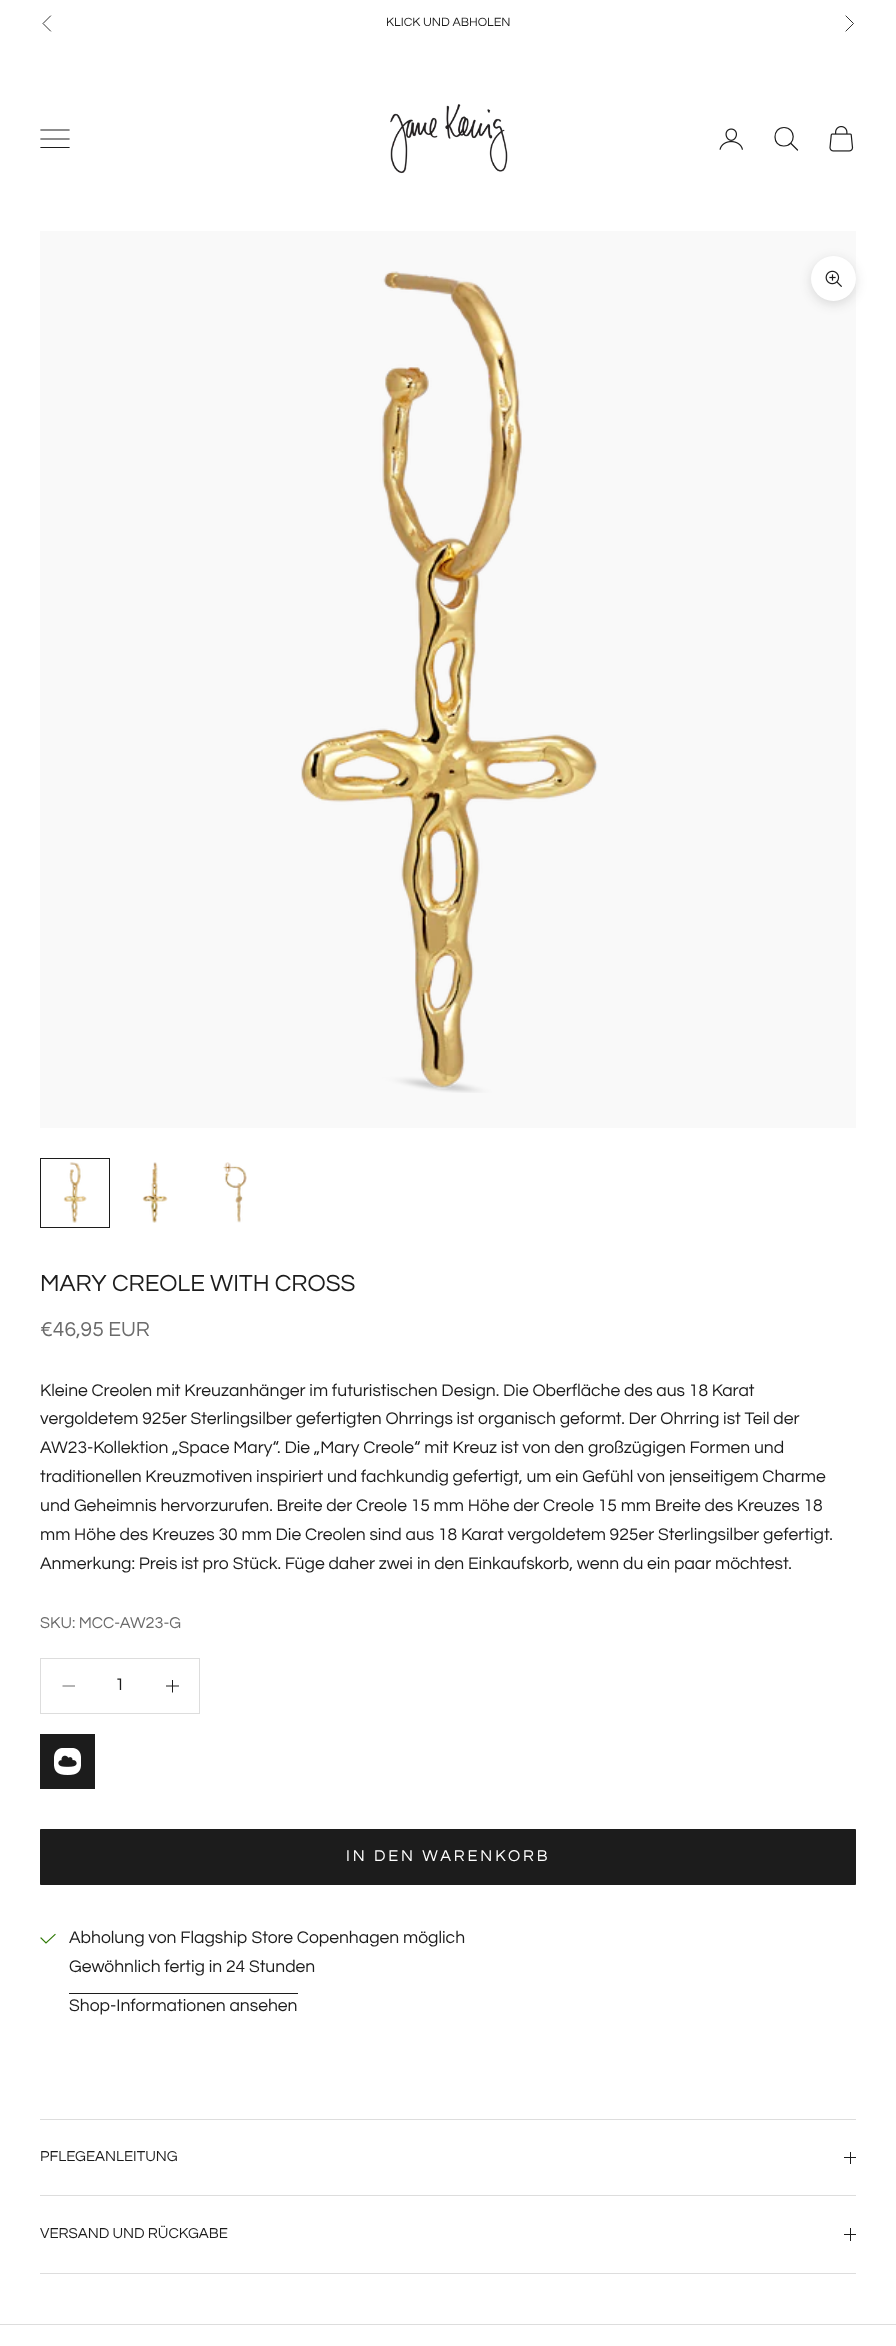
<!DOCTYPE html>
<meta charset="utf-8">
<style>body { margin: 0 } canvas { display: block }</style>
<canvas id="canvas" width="896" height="2346"></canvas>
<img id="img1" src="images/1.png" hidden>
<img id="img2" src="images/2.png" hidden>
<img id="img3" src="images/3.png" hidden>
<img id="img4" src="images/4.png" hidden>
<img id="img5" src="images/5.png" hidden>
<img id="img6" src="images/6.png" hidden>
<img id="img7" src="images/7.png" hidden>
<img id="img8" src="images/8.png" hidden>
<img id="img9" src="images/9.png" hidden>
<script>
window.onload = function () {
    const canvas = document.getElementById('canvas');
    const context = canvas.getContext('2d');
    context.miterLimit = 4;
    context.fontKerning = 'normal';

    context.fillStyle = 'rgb(255, 255, 255)';
    context.fillRect(0, 0, 896, 2346);
    context.beginPath();
    context.moveTo(50.5, 16);
    context.lineTo(43, 23.5);
    context.lineTo(50.5, 31);
    context.strokeStyle = 'rgb(28, 28, 28)';
    context.lineWidth = 0.9;
    context.lineCap = 'square';
    context.stroke();
    context.beginPath();
    context.moveTo(846, 31);
    context.lineTo(853.5, 23.5);
    context.lineTo(846, 16);
    context.stroke();
    context.beginPath();
    context.moveTo(41, 147.5);
    context.lineTo(69, 147.5);
    context.moveTo(41, 139);
    context.lineTo(69, 139);
    context.moveTo(41, 130);
    context.lineTo(69, 130);
    context.lineWidth = 1.2;
    context.stroke();
    context.drawImage(document.getElementById('img1'), 390, 104, 118, 70);
    context.drawImage(document.getElementById('img2'), 719, 128, 24, 22);
    context.beginPath();
    context.moveTo(784, 127.5);
    context.bezierCurveTo(772, 127.5, 772, 146.5, 784, 146);
    context.bezierCurveTo(796.5, 145.5, 796, 127.5, 784, 127.5);
    context.closePath();
    context.lineCap = 'butt';
    context.stroke();
    context.beginPath();
    context.moveTo(791, 143.5);
    context.lineTo(797.5, 150);
    context.lineCap = 'round';
    context.stroke();
    context.drawImage(document.getElementById('img3'), 829, 126, 25, 26);
    context.fillStyle = 'rgb(249, 249, 249)';
    context.fillRect(40, 231, 816, 897);
    context.drawImage(document.getElementById('img4'), 301, 271, 297, 822);
    context.fillStyle = 'rgba(28, 28, 28, 0.15)';
    context.filter = 'blur(6px)';
    context.beginPath();
    context.roundRect(811, 259, 45, 45, 22.5);
    context.fill();
    context.filter = 'none';
    context.fillStyle = 'rgb(255, 255, 255)';
    context.beginPath();
    context.arc(833.5, 278.5, 22.5, 0, 2 * Math.PI);
    context.fill();
    context.drawImage(document.getElementById('img5'), 825, 270, 17, 17);
    context.lineWidth = 1;
    context.strokeRect(40.5, 1158.5, 69, 69);
    context.drawImage(document.getElementById('img6'), 63, 1162, 24, 61);
    context.drawImage(document.getElementById('img7'), 142, 1162, 26, 61);
    context.drawImage(document.getElementById('img8'), 223, 1162, 24, 61);
    context.strokeStyle = 'rgb(221, 221, 221)';
    context.strokeRect(40.5, 1658.5, 159, 55);
    context.beginPath();
    context.moveTo(62.5, 1686);
    context.lineTo(75, 1686);
    context.strokeStyle = 'rgb(107, 107, 107)';
    context.lineCap = 'butt';
    context.stroke();
    context.beginPath();
    context.moveTo(172.5, 1680);
    context.lineTo(172.5, 1692.5);
    context.moveTo(166, 1686);
    context.lineTo(179, 1686);
    context.strokeStyle = 'rgb(28, 28, 28)';
    context.stroke();
    context.fillStyle = 'rgb(28, 28, 28)';
    context.fillRect(40, 1734, 55, 55);
    context.drawImage(document.getElementById('img9'), 54, 1748, 27, 27);
    context.beginPath();
    context.rect(40.5, 1829.5, 815, 55);
    context.fill();
    context.stroke();
    context.beginPath();
    context.moveTo(41, 1938);
    context.lineTo(46, 1943);
    context.lineTo(55, 1934.5);
    context.strokeStyle = 'rgb(48, 122, 7)';
    context.lineWidth = 1.2;
    context.lineCap = 'square';
    context.stroke();
    context.fillRect(69, 1993, 229, 1);
    context.fillStyle = 'rgb(221, 221, 221)';
    context.fillRect(40, 2119, 816, 1);
    context.fillRect(40, 2195, 816, 1);
    context.fillStyle = 'rgb(28, 28, 28)';
    context.fillRect(850, 2152, 1, 12);
    context.fillRect(844, 2157, 12, 1);
    context.fillStyle = 'rgb(221, 221, 221)';
    context.fillRect(40, 2273, 816, 1);
    context.fillStyle = 'rgb(28, 28, 28)';
    context.fillRect(850, 2228, 1, 13);
    context.fillRect(844, 2234, 12, 1);
    context.fillStyle = 'rgb(221, 221, 221)';
    context.fillRect(0, 2324, 896, 1);
    context.font = '12.5px Questrial';
    context.fillStyle = 'rgb(28, 28, 28)';
    context.fillText('KLICK UND ABHOLEN', 386, 26);
    context.font = '24.2px Questrial';
    context.fillText('MARY CREOLE WITH CROSS', 40, 1291);
    context.font = '21px Questrial';
    context.fillStyle = 'rgb(107, 107, 107)';
    context.fillText('€46,95 EUR', 40, 1336);
    context.font = '17.5px Questrial';
    context.fillStyle = 'rgb(28, 28, 28)';
    context.fillText('Kleine Creolen mit Kreuzanhänger im futuristischen Design. Die Oberfläche des aus 18 Karat', 40, 1396);
    context.fillText('vergoldetem 925er Sterlingsilber gefertigten Ohrrings ist organisch geformt. Der Ohrring ist Teil der', 40, 1424);
    context.fillText('AW23-Kollektion „Space Mary“. Die „Mary Creole“ mit Kreuz ist von den großzügigen Formen und', 40, 1453);
    context.fillText('traditionellen Kreuzmotiven inspiriert und fachkundig gefertigt, um ein Gefühl von jenseitigem Charme', 40, 1482);
    context.fillText('und Geheimnis hervorzurufen. Breite der Creole 15 mm Höhe der Creole 15 mm Breite des Kreuzes 18', 40, 1511);
    context.fillText('mm Höhe des Kreuzes 30 mm Die Creolen sind aus 18 Karat vergoldetem 925er Sterlingsilber gefertigt.', 40, 1540);
    context.fillText('Anmerkung: Preis ist pro Stück. Füge daher zwei in den Einkaufskorb, wenn du ein paar möchtest.', 40, 1569);
    context.font = '16.25px Questrial';
    context.fillStyle = 'rgb(107, 107, 107)';
    context.fillText('SKU: MCC-AW23-G', 40, 1628);
    context.font = '17.5px Questrial';
    context.fillStyle = 'rgb(28, 28, 28)';
    context.fillText('1', 115, 1690);
    context.letterSpacing = '2.9px';
    context.font = '16.25px Questrial';
    context.fillStyle = 'rgb(255, 255, 255)';
    context.fillText('IN DEN WARENKORB', 346, 1861);
    context.letterSpacing = '0px';
    context.font = '17.5px Questrial';
    context.fillStyle = 'rgb(28, 28, 28)';
    context.fillText('Abholung von Flagship Store Copenhagen möglich', 69, 1943);
    context.fillText('Gewöhnlich fertig in 24 Stunden', 69, 1972);
    context.fillText('Shop-Informationen ansehen', 69, 2011);
    context.font = '15px Questrial';
    context.fillText('PFLEGEANLEITUNG', 40, 2161);
    context.fillText('VERSAND UND RÜCKGABE', 40, 2238);
};
</script>
